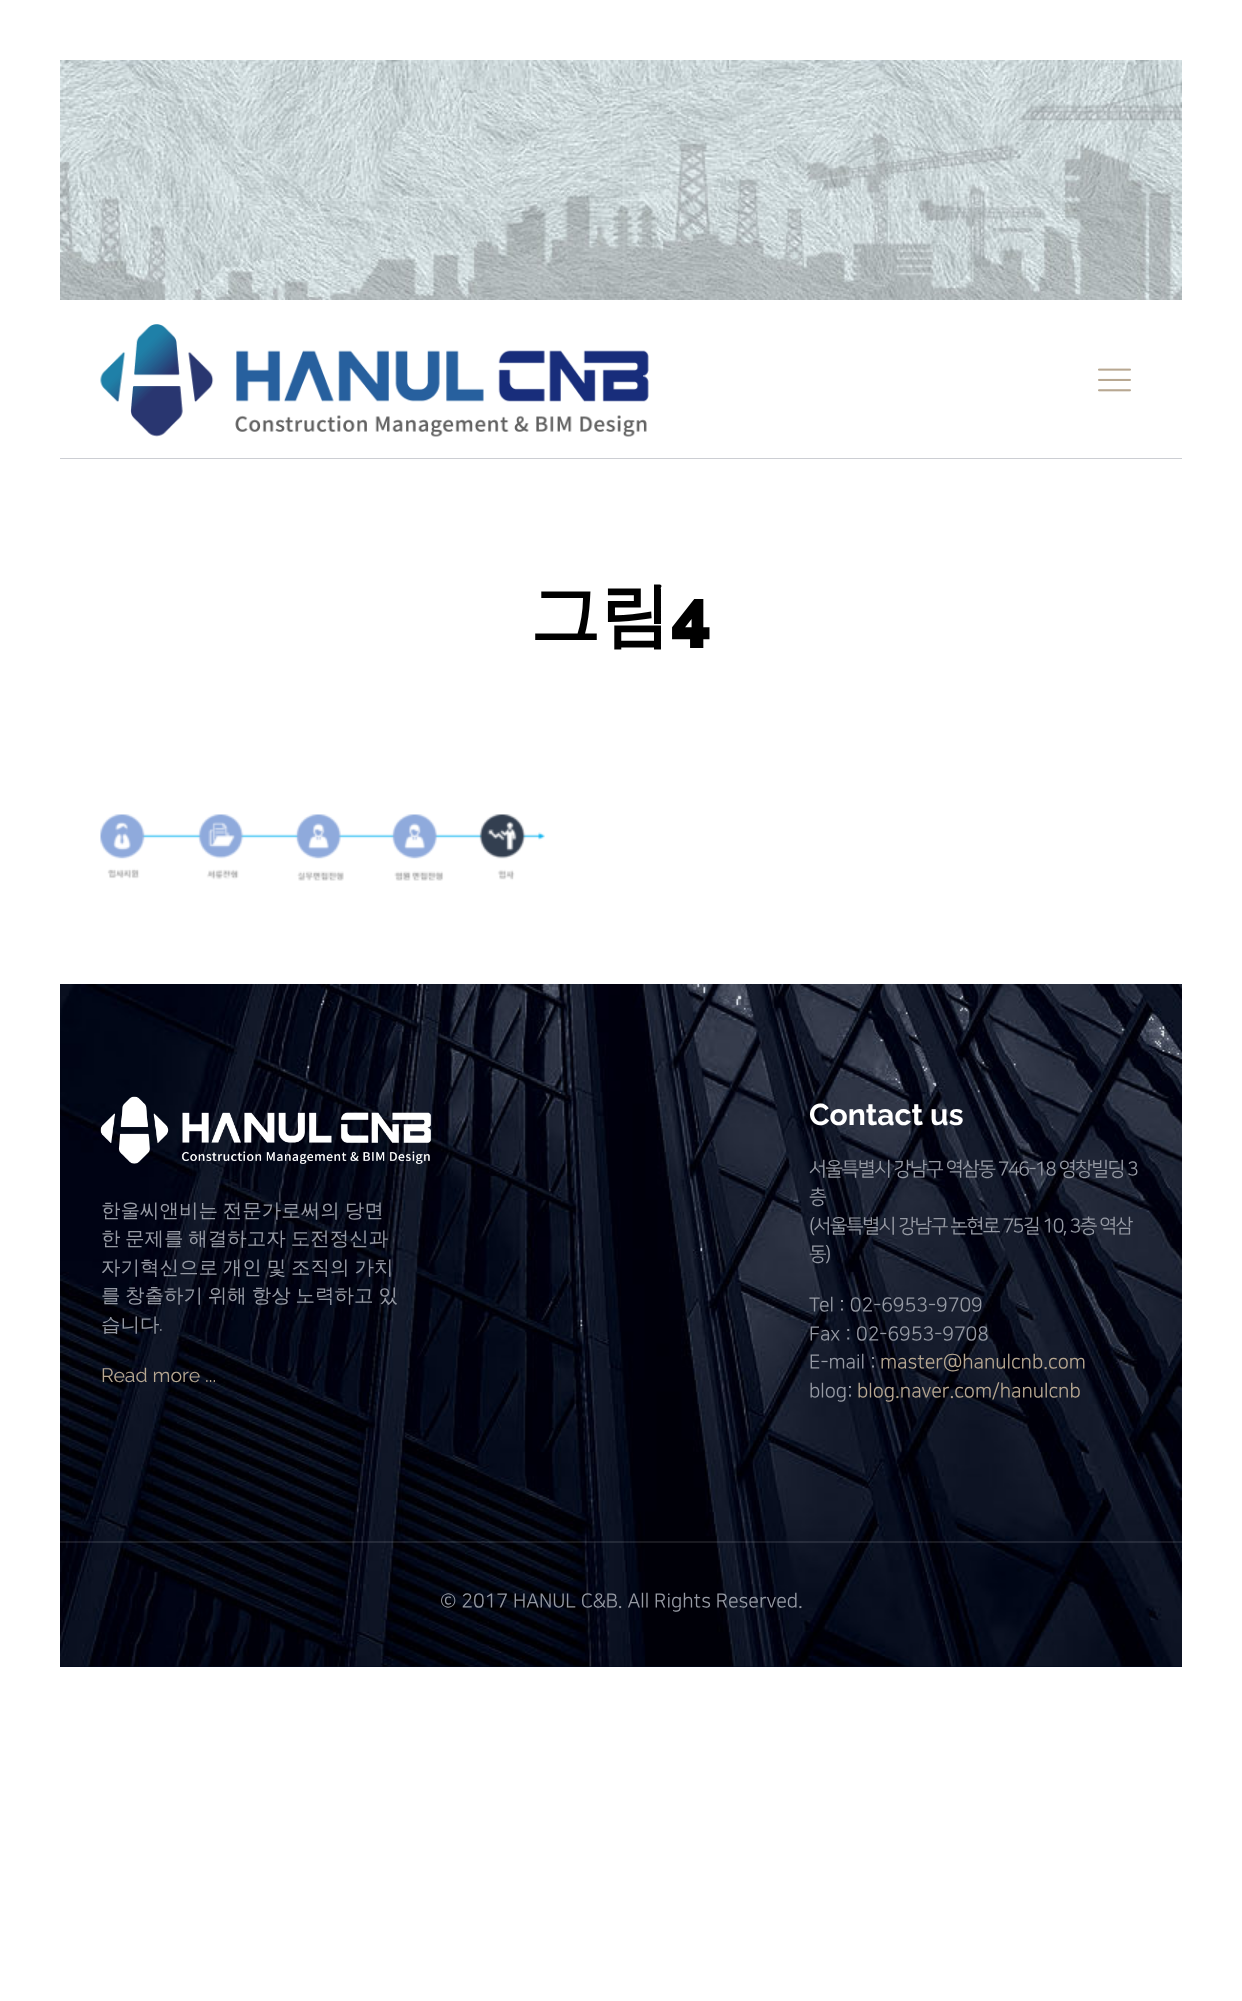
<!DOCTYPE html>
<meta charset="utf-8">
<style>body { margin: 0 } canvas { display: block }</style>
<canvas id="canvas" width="1242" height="2001"></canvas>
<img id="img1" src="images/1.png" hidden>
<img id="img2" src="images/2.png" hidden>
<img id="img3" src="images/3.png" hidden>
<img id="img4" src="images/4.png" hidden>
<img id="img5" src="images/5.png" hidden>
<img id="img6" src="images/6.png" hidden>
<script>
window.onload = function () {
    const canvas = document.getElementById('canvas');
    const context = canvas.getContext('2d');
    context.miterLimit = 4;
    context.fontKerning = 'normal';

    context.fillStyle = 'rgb(255, 255, 255)';
    context.fillRect(0, 0, 1242, 2001);
    context.drawImage(document.getElementById('img1'), 60, 60, 1122, 240);
    context.fillStyle = 'rgb(204, 206, 211)';
    context.fillRect(60, 458, 1122, 1);
    context.drawImage(document.getElementById('img2'), 100, 324, 549, 113);
    context.drawImage(document.getElementById('img3'), 1098, 368, 33, 24);
    context.drawImage(document.getElementById('img4'), 100, 814, 445, 67);
    context.fillStyle = 'rgb(1, 11, 35)';
    context.fillRect(60, 1666, 1122, 1);
    context.drawImage(document.getElementById('img5'), 60, 984, 1122, 683);
    context.drawImage(document.getElementById('img6'), 100, 1096, 331, 68);
    context.fillStyle = 'rgba(255, 255, 255, 0.1)';
    context.fillRect(60, 1541, 1122, 2);
    context.font = 'bold 70px WenQuanYi Zen Hei';
    context.fillStyle = 'rgb(0, 0, 0)';
    context.fillText('그림', 530, 639);
    context.font = '900 70px Raleway';
    context.fillText('4', 671, 639);
    context.wordSpacing = '-1px';
    context.font = '500 19.5px WenQuanYi Zen Hei';
    context.fillStyle = 'rgb(150, 154, 164)';
    context.fillText('한울씨앤비는 전문가로써의 당면', 101, 1217);
    context.wordSpacing = '0px';
    context.fillText('한', 101, 1245);
    context.wordSpacing = '-1px';
    context.fillText('문제를 해결하고자 도전정신과', 125, 1245);
    context.fillText('자기혁신으로 개인 및 조직의 가치', 101, 1274);
    context.wordSpacing = '0px';
    context.fillText('를', 101, 1302);
    context.wordSpacing = '-1px';
    context.fillText('창출하기 위해 항상 노력하고 있', 125, 1302);
    context.wordSpacing = '0px';
    context.fillText('습니다', 101, 1331);
    context.font = '19.5px Raleway';
    context.fillText('.', 159, 1331);
    context.fillStyle = 'rgb(184, 168, 146)';
    context.fillText('Read more ...', 101, 1382);
    context.font = 'bold 30px Raleway';
    context.fillStyle = 'rgb(255, 255, 255)';
    context.fillText('Contact us', 809, 1125);
    context.letterSpacing = '-1.5px';
    context.font = '19.5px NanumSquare';
    context.fillStyle = 'rgb(150, 154, 164)';
    context.fillText('서울특별시 강남구 역삼동 746-18 영창빌딩 3', 809, 1175);
    context.fillText('층', 809, 1203);
    context.fillText('(서울특별시 강남구 논현로 75길 10, 3층 역삼', 809, 1232);
    context.fillText('동)', 809, 1260);
    context.letterSpacing = '0px';
    context.fillText('Tel : 02-6953-9709', 809, 1311);
    context.fillText('Fax : 02-6953-9708', 809, 1340);
    context.fillText('E-mail :', 809, 1368);
    context.fillStyle = 'rgb(184, 168, 146)';
    context.fillText('master@hanulcnb.com', 880, 1368);
    context.fillStyle = 'rgb(150, 154, 164)';
    context.fillText('blog:', 809, 1397);
    context.fillStyle = 'rgb(184, 168, 146)';
    context.fillText('blog.naver.com/hanulcnb', 857, 1397);
    context.fillStyle = 'rgb(150, 154, 164)';
    context.fillText('© 2017 HANUL C&B. All Rights Reserved.', 440, 1607);
};
</script>
